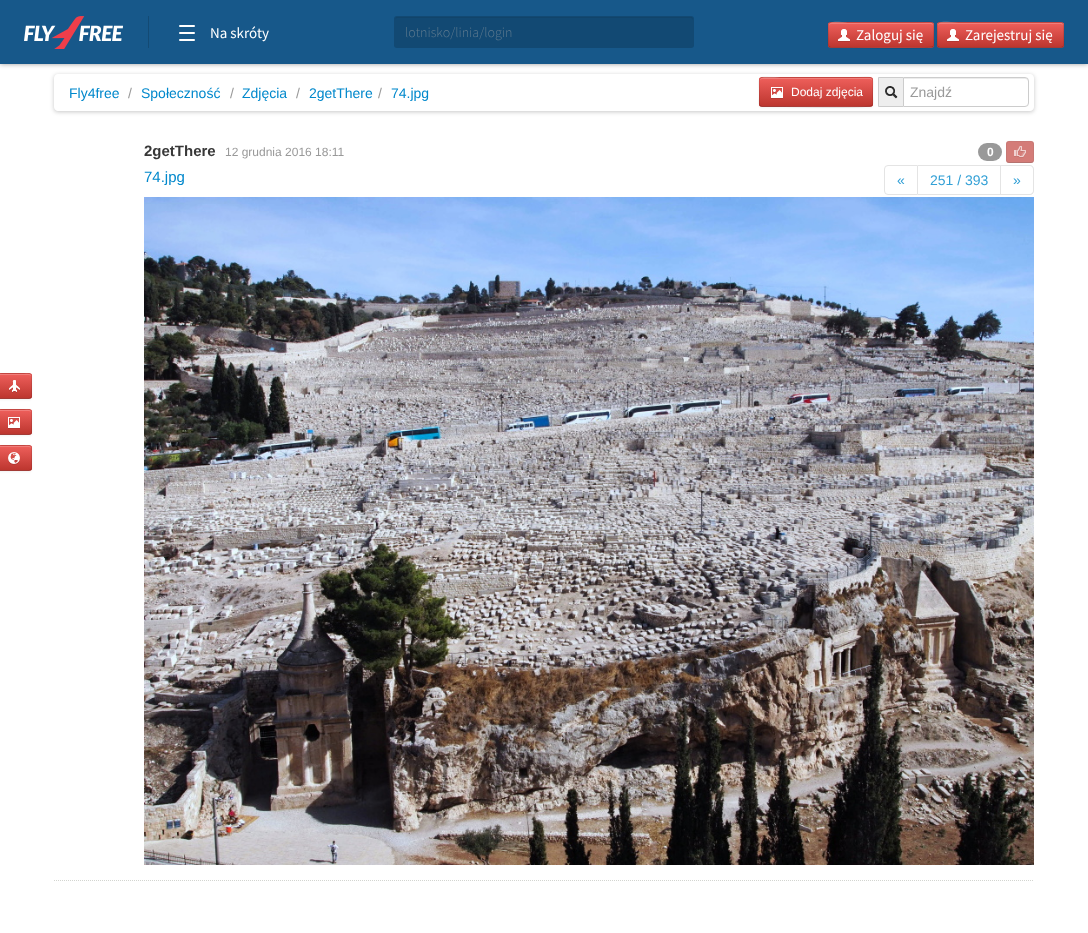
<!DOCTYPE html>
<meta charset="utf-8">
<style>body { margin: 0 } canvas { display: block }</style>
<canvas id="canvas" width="1088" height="933"></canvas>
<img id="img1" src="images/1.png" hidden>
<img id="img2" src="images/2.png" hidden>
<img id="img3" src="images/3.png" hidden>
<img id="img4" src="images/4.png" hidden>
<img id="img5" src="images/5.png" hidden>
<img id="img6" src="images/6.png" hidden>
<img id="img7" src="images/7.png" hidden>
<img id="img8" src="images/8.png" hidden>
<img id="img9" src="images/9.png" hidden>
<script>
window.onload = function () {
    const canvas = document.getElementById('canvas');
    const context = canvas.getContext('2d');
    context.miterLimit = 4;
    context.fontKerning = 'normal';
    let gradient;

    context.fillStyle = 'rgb(255, 255, 255)';
    context.fillRect(0, 0, 1088, 933);
    context.fillStyle = 'rgba(0, 0, 0, 0.4)';
    context.filter = 'blur(2.5px)';
    context.beginPath();
    context.rect(0, 0, 1088, 64);
    context.fill();
    context.filter = 'none';
    context.fillStyle = 'rgb(23, 88, 138)';
    context.fillRect(0, 0, 1088, 64);
    context.drawImage(document.getElementById('img1'), 24, 16, 99, 33);
    context.fillStyle = 'rgb(19, 74, 116)';
    context.fillRect(148, 16, 1, 32);
    context.fillStyle = 'rgb(255, 255, 255)';
    context.beginPath();
    context.roundRect(179, 39, 16, 2, 1);
    context.fill();
    context.beginPath();
    context.roundRect(179, 25, 16, 2, 1);
    context.fill();
    context.beginPath();
    context.roundRect(179, 32, 16, 2, 1);
    context.fill();
    context.fillStyle = 'rgb(18, 73, 115)';
    context.beginPath();
    context.roundRect(394, 16, 300, 32, 3);
    context.fill();
    context.fillStyle = 'rgb(17, 68, 106)';
    context.beginPath();
    context.moveTo(397, 18);
    context.lineTo(691, 18);
    context.bezierCurveTo(692, 18, 693, 19, 693, 20);
    context.bezierCurveTo(693, 19, 693, 17, 691, 17);
    context.lineTo(396, 17);
    context.lineTo(395, 20);
    context.bezierCurveTo(395, 19, 396, 18, 397, 18);
    context.closePath();
    context.fill();
    context.fillStyle = 'rgb(218, 79, 73)';
    context.beginPath();
    context.roundRect(828, 22, 106, 26, 3);
    context.fill();
    context.save();
    context.beginPath();
    context.roundRect(828, 22, 106, 26, 3);
    context.clip();
    gradient = context.createLinearGradient(881, 23, 881, 47);
    gradient.addColorStop(0, 'rgb(238, 95, 91)');
    gradient.addColorStop(1, 'rgb(189, 54, 47)');
    context.fillStyle = gradient;
    context.fillRect(828, 23, 106, 24);
    context.restore();
    context.fillStyle = 'rgba(255, 255, 255, 0.2)';
    context.beginPath();
    context.moveTo(831, 24);
    context.lineTo(931, 24);
    context.bezierCurveTo(932, 24, 933, 25, 933, 26);
    context.bezierCurveTo(933, 25, 933, 23, 931, 23);
    context.lineTo(848, 23);
    context.bezierCurveTo(847, 23, 829, 18, 829, 26);
    context.bezierCurveTo(829, 25, 830, 24, 831, 24);
    context.closePath();
    context.fill();
    context.beginPath();
    context.moveTo(933, 47);
    context.lineTo(932.5, 47);
    context.bezierCurveTo(930.5, 48.5, 856.5, 47.5, 847.5, 47.5);
    context.lineTo(831, 47.5);
    context.lineTo(829, 47);
    context.strokeStyle = 'rgba(0, 0, 0, 0.25)';
    context.stroke();
    context.beginPath();
    context.moveTo(829, 47);
    context.bezierCurveTo(827.5, 45, 828.5, 40.5, 828.5, 38.5);
    context.bezierCurveTo(828.5, 18, 825, 22.5, 847.5, 22.5);
    context.lineTo(914.5, 22.5);
    context.bezierCurveTo(937, 22.5, 933.5, 18, 933.5, 38.5);
    context.bezierCurveTo(933.5, 40.5, 934.5, 45, 933, 47);
    context.strokeStyle = 'rgba(0, 0, 0, 0.1)';
    context.stroke();
    context.drawImage(document.getElementById('img2'), 838, 29, 12, 13);
    context.fillStyle = 'rgb(218, 79, 73)';
    context.beginPath();
    context.roundRect(937, 22, 127, 26, 3);
    context.fill();
    context.save();
    context.beginPath();
    context.roundRect(937, 22, 127, 26, 3);
    context.clip();
    gradient = context.createLinearGradient(1001, 23, 1001, 47);
    gradient.addColorStop(0, 'rgb(238, 95, 91)');
    gradient.addColorStop(1, 'rgb(189, 54, 47)');
    context.fillStyle = gradient;
    context.fillRect(937, 23, 127, 24);
    context.restore();
    context.fillStyle = 'rgba(255, 255, 255, 0.2)';
    context.beginPath();
    context.moveTo(940, 24);
    context.lineTo(1061, 24);
    context.lineTo(1063, 25);
    context.lineTo(1063, 26);
    context.bezierCurveTo(1063, 25, 1063, 24, 1062, 23);
    context.lineTo(960, 23);
    context.bezierCurveTo(954, 23, 938, 18, 938, 26);
    context.bezierCurveTo(938, 25, 939, 24, 940, 24);
    context.closePath();
    context.fill();
    context.beginPath();
    context.moveTo(1063, 47);
    context.lineTo(1061, 47.5);
    context.lineTo(940, 47.5);
    context.lineTo(938, 47);
    context.strokeStyle = 'rgba(0, 0, 0, 0.25)';
    context.stroke();
    context.beginPath();
    context.moveTo(938, 47);
    context.bezierCurveTo(936.5, 45, 937.5, 37.5, 937.5, 35);
    context.lineTo(937.5, 28.5);
    context.bezierCurveTo(937.5, 26.5, 937, 22.5, 940, 22.5);
    context.lineTo(1061, 22.5);
    context.bezierCurveTo(1064, 22.5, 1063.5, 26.5, 1063.5, 28.5);
    context.lineTo(1063.5, 35);
    context.bezierCurveTo(1063.5, 37.5, 1064.5, 45, 1063, 47);
    context.strokeStyle = 'rgba(0, 0, 0, 0.1)';
    context.stroke();
    context.drawImage(document.getElementById('img2'), 947, 29, 12, 13);
    context.save();
    context.beginPath();
    context.moveTo(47, 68);
    context.lineTo(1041, 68);
    context.lineTo(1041, 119);
    context.lineTo(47, 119);
    context.closePath();
    context.moveTo(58, 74);
    context.lineTo(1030, 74);
    context.bezierCurveTo(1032, 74, 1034, 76, 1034, 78);
    context.lineTo(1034, 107);
    context.bezierCurveTo(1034, 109, 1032, 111, 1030, 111);
    context.lineTo(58, 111);
    context.bezierCurveTo(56, 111, 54, 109, 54, 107);
    context.lineTo(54, 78);
    context.bezierCurveTo(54, 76, 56, 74, 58, 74);
    context.closePath();
    context.clip('evenodd');
    context.fillStyle = 'rgba(0, 0, 0, 0.22)';
    context.filter = 'blur(2px)';
    context.beginPath();
    context.roundRect(54, 75, 980, 37, 4);
    context.fill();
    context.filter = 'none';
    context.restore();
    context.fillStyle = 'rgba(0, 0, 0, 0.05)';
    context.filter = 'blur(1px)';
    context.beginPath();
    context.roundRect(759, 78, 114, 30, 3);
    context.fill();
    context.filter = 'none';
    context.fillStyle = 'rgb(218, 79, 73)';
    context.beginPath();
    context.roundRect(759, 77, 114, 30, 3);
    context.fill();
    context.save();
    context.beginPath();
    context.roundRect(759, 77, 114, 30, 3);
    context.clip();
    gradient = context.createLinearGradient(816, 78, 816, 106);
    gradient.addColorStop(0, 'rgb(238, 95, 91)');
    gradient.addColorStop(1, 'rgb(189, 54, 47)');
    context.fillStyle = gradient;
    context.fillRect(759, 78, 114, 28);
    context.restore();
    context.fillStyle = 'rgba(255, 255, 255, 0.2)';
    context.beginPath();
    context.moveTo(762, 79);
    context.lineTo(870, 79);
    context.bezierCurveTo(871, 79, 872, 80, 872, 81);
    context.bezierCurveTo(872, 80, 872, 78, 870, 78);
    context.lineTo(780, 78);
    context.bezierCurveTo(780, 78, 760, 73, 760, 81);
    context.bezierCurveTo(760, 80, 761, 79, 762, 79);
    context.closePath();
    context.fill();
    context.beginPath();
    context.moveTo(872, 106);
    context.lineTo(871.5, 106);
    context.bezierCurveTo(869.5, 107.5, 789, 106.5, 780, 106.5);
    context.lineTo(762, 106.5);
    context.lineTo(760, 106);
    context.strokeStyle = 'rgba(0, 0, 0, 0.25)';
    context.stroke();
    context.beginPath();
    context.moveTo(760, 106);
    context.bezierCurveTo(758.5, 104, 759.5, 98, 759.5, 96);
    context.bezierCurveTo(759.5, 73, 755, 77.5, 780, 77.5);
    context.lineTo(852, 77.5);
    context.bezierCurveTo(877, 77.5, 872.5, 73, 872.5, 96);
    context.bezierCurveTo(872.5, 98, 873.5, 104, 872, 106);
    context.strokeStyle = 'rgba(0, 0, 0, 0.1)';
    context.stroke();
    context.drawImage(document.getElementById('img3'), 771, 87, 12, 12);
    context.fillStyle = 'rgb(238, 238, 238)';
    context.beginPath();
    context.rect(878.5, 77.5, 25, 29);
    context.fill();
    context.strokeStyle = 'rgb(204, 204, 204)';
    context.stroke();
    context.drawImage(document.getElementById('img4'), 885, 86, 13, 13);
    context.fillStyle = 'rgb(255, 255, 255)';
    context.beginPath();
    context.roundRect(903, 77, 126, 30, [0, 4, 4, 0]);
    context.fill();
    context.fillStyle = 'rgb(236, 236, 236)';
    context.beginPath();
    context.moveTo(904, 79);
    context.lineTo(1025, 79);
    context.bezierCurveTo(1027, 79, 1028, 80, 1028, 82);
    context.lineTo(1028, 81);
    context.bezierCurveTo(1028, 79, 1027, 78, 1025, 78);
    context.lineTo(904, 78);
    context.closePath();
    context.fill();
    context.beginPath();
    context.roundRect(903.5, 77.5, 125, 29, [0, 3.5, 3.5, 0]);
    context.stroke();
    context.beginPath();
    context.moveTo(54, 880.5);
    context.lineTo(1034, 880.5);
    context.strokeStyle = 'rgb(211, 213, 208)';
    context.setLineDash([1, 1]);
    context.stroke();
    context.fillStyle = 'rgb(153, 153, 153)';
    context.beginPath();
    context.roundRect(978, 143, 24, 18, 9);
    context.fill();
    context.fillStyle = 'rgb(212, 124, 120)';
    context.beginPath();
    context.roundRect(1006, 141, 28, 22, 3);
    context.fill();
    context.beginPath();
    context.moveTo(1033, 162);
    context.bezierCurveTo(1032.5, 162, 1031.5, 162.5, 1031, 162.5);
    context.lineTo(1009, 162.5);
    context.bezierCurveTo(1008.5, 162.5, 1007.5, 162, 1007, 162);
    context.strokeStyle = 'rgba(89, 89, 89, 0.25)';
    context.setLineDash([]);
    context.stroke();
    context.beginPath();
    context.moveTo(1007, 162);
    context.bezierCurveTo(1006, 160.5, 1006.5, 158.5, 1006.5, 157.5);
    context.lineTo(1006.5, 152);
    context.bezierCurveTo(1006.5, 138.5, 1005.5, 141.5, 1020, 141.5);
    context.bezierCurveTo(1034.5, 141.5, 1033.5, 138.5, 1033.5, 152);
    context.lineTo(1033.5, 157.5);
    context.bezierCurveTo(1033.5, 158.5, 1034, 160.5, 1033, 162);
    context.strokeStyle = 'rgba(89, 89, 89, 0.1)';
    context.stroke();
    context.drawImage(document.getElementById('img5'), 1014, 146, 12, 12);
    context.beginPath();
    context.roundRect(884.5, 165.5, 33, 29, [3.5, 0, 0, 3.5]);
    context.strokeStyle = 'rgb(228, 228, 228)';
    context.stroke();
    context.fillStyle = 'rgb(228, 228, 228)';
    context.fillRect(918, 165, 83, 1);
    context.fillRect(1000, 165, 1, 30);
    context.fillRect(918, 194, 83, 1);
    context.beginPath();
    context.moveTo(1001, 165);
    context.lineTo(1030, 165);
    context.bezierCurveTo(1032, 165, 1034, 167, 1034, 169);
    context.lineTo(1034, 191);
    context.bezierCurveTo(1034, 193, 1032, 195, 1030, 195);
    context.lineTo(1001, 195);
    context.closePath();
    context.moveTo(1001, 166);
    context.lineTo(1030, 166);
    context.bezierCurveTo(1031.5, 166, 1033, 167.5, 1033, 169);
    context.lineTo(1033, 191);
    context.bezierCurveTo(1033, 192.5, 1031.5, 194, 1030, 194);
    context.lineTo(1001, 194);
    context.closePath();
    context.fill('evenodd');
    context.drawImage(document.getElementById('img6'), 144, 197, 890, 668);
    context.fillStyle = 'rgba(0, 0, 0, 0.05)';
    context.filter = 'blur(1px)';
    context.beginPath();
    context.roundRect(-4, 374, 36, 26, 3);
    context.fill();
    context.filter = 'none';
    context.fillStyle = 'rgb(218, 79, 73)';
    context.beginPath();
    context.roundRect(-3, 373, 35, 26, 3);
    context.fill();
    context.save();
    context.beginPath();
    context.roundRect(-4, 373, 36, 26, 3);
    context.clip();
    gradient = context.createLinearGradient(14, 374, 14, 398);
    gradient.addColorStop(0, 'rgb(238, 95, 91)');
    gradient.addColorStop(1, 'rgb(189, 54, 47)');
    context.fillStyle = gradient;
    context.fillRect(0, 374, 32, 24);
    context.restore();
    context.fillStyle = 'rgb(241, 126, 123)';
    context.beginPath();
    context.moveTo(-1, 375);
    context.lineTo(29, 375);
    context.bezierCurveTo(30, 375, 31, 376, 31, 377);
    context.bezierCurveTo(31, 372.5, 28, 374, 24, 374);
    context.lineTo(4, 374);
    context.bezierCurveTo(0, 374, -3, 372.5, -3, 377);
    context.bezierCurveTo(-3, 376, -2, 375, -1, 375);
    context.closePath();
    context.fill();
    context.beginPath();
    context.moveTo(31, 398);
    context.bezierCurveTo(30.5, 398, 29.5, 398.5, 29, 398.5);
    context.lineTo(-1, 398.5);
    context.bezierCurveTo(-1.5, 398.5, -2.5, 398, -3, 398);
    context.strokeStyle = 'rgba(0, 0, 0, 0.25)';
    context.stroke();
    context.beginPath();
    context.moveTo(-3, 398);
    context.bezierCurveTo(-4, 396.5, -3.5, 394, -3.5, 392.5);
    context.lineTo(-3.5, 379.5);
    context.bezierCurveTo(-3.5, 372.5, -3, 373.5, 4, 373.5);
    context.lineTo(24, 373.5);
    context.bezierCurveTo(31, 373.5, 31.5, 372.5, 31.5, 379.5);
    context.lineTo(31.5, 392.5);
    context.bezierCurveTo(31.5, 394, 32, 396.5, 31, 398);
    context.strokeStyle = 'rgba(0, 0, 0, 0.1)';
    context.stroke();
    context.drawImage(document.getElementById('img7'), 9, 380, 11, 13);
    context.fillStyle = 'rgba(0, 0, 0, 0.05)';
    context.filter = 'blur(1px)';
    context.beginPath();
    context.roundRect(-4, 410, 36, 26, 3);
    context.fill();
    context.filter = 'none';
    context.fillStyle = 'rgb(218, 79, 73)';
    context.beginPath();
    context.roundRect(-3, 409, 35, 26, 3);
    context.fill();
    context.save();
    context.beginPath();
    context.roundRect(-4, 409, 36, 26, 3);
    context.clip();
    gradient = context.createLinearGradient(14, 410, 14, 434);
    gradient.addColorStop(0, 'rgb(238, 95, 91)');
    gradient.addColorStop(1, 'rgb(189, 54, 47)');
    context.fillStyle = gradient;
    context.fillRect(0, 410, 32, 24);
    context.restore();
    context.fillStyle = 'rgb(241, 126, 123)';
    context.beginPath();
    context.moveTo(-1, 411);
    context.lineTo(29, 411);
    context.bezierCurveTo(30, 411, 31, 412, 31, 413);
    context.bezierCurveTo(31, 408.5, 28, 410, 24, 410);
    context.lineTo(4, 410);
    context.bezierCurveTo(0, 410, -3, 408.5, -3, 413);
    context.bezierCurveTo(-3, 412, -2, 411, -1, 411);
    context.closePath();
    context.fill();
    context.beginPath();
    context.moveTo(31, 434);
    context.bezierCurveTo(30.5, 434, 29.5, 434.5, 29, 434.5);
    context.lineTo(-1, 434.5);
    context.bezierCurveTo(-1.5, 434.5, -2.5, 434, -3, 434);
    context.strokeStyle = 'rgba(0, 0, 0, 0.25)';
    context.stroke();
    context.beginPath();
    context.moveTo(-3, 434);
    context.bezierCurveTo(-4, 432.5, -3.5, 430, -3.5, 428.5);
    context.lineTo(-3.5, 415.5);
    context.bezierCurveTo(-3.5, 408.5, -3, 409.5, 4, 409.5);
    context.lineTo(24, 409.5);
    context.bezierCurveTo(31, 409.5, 31.5, 408.5, 31.5, 415.5);
    context.lineTo(31.5, 428.5);
    context.bezierCurveTo(31.5, 430, 32, 432.5, 31, 434);
    context.strokeStyle = 'rgba(0, 0, 0, 0.1)';
    context.stroke();
    context.drawImage(document.getElementById('img8'), 8, 417, 12, 12);
    context.fillStyle = 'rgba(0, 0, 0, 0.05)';
    context.filter = 'blur(1px)';
    context.beginPath();
    context.roundRect(-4, 446, 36, 26, 3);
    context.fill();
    context.filter = 'none';
    context.fillStyle = 'rgb(218, 79, 73)';
    context.beginPath();
    context.roundRect(-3, 445, 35, 26, 3);
    context.fill();
    context.save();
    context.beginPath();
    context.roundRect(-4, 445, 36, 26, 3);
    context.clip();
    gradient = context.createLinearGradient(14, 446, 14, 470);
    gradient.addColorStop(0, 'rgb(238, 95, 91)');
    gradient.addColorStop(1, 'rgb(189, 54, 47)');
    context.fillStyle = gradient;
    context.fillRect(0, 446, 32, 24);
    context.restore();
    context.fillStyle = 'rgb(241, 126, 123)';
    context.beginPath();
    context.moveTo(-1, 447);
    context.lineTo(29, 447);
    context.bezierCurveTo(30, 447, 31, 448, 31, 449);
    context.bezierCurveTo(31, 444.5, 28, 446, 24, 446);
    context.lineTo(4, 446);
    context.bezierCurveTo(0, 446, -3, 444.5, -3, 449);
    context.bezierCurveTo(-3, 448, -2, 447, -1, 447);
    context.closePath();
    context.fill();
    context.beginPath();
    context.moveTo(31, 470);
    context.bezierCurveTo(30.5, 470, 29.5, 470.5, 29, 470.5);
    context.lineTo(-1, 470.5);
    context.bezierCurveTo(-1.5, 470.5, -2.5, 470, -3, 470);
    context.strokeStyle = 'rgba(0, 0, 0, 0.25)';
    context.stroke();
    context.beginPath();
    context.moveTo(-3, 470);
    context.bezierCurveTo(-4, 468.5, -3.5, 466, -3.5, 464.5);
    context.lineTo(-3.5, 451.5);
    context.bezierCurveTo(-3.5, 444.5, -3, 445.5, 4, 445.5);
    context.lineTo(24, 445.5);
    context.bezierCurveTo(31, 445.5, 31.5, 444.5, 31.5, 451.5);
    context.lineTo(31.5, 464.5);
    context.bezierCurveTo(31.5, 466, 32, 468.5, 31, 470);
    context.strokeStyle = 'rgba(0, 0, 0, 0.1)';
    context.stroke();
    context.drawImage(document.getElementById('img9'), 8, 452, 12, 13);
    context.font = '15px Source Sans Pro';
    context.fillStyle = 'rgb(255, 255, 255)';
    context.fillText('Na skróty', 210, 38);
    context.font = '300 14px Source Sans Pro';
    context.fillStyle = 'rgb(94, 122, 143)';
    context.fillText('lotnisko/linia/login', 405, 37);
    context.font = '15px Source Sans Pro';
    context.fillStyle = 'rgb(255, 255, 255)';
    context.fillText('Zaloguj się', 856, 40);
    context.fillText('Zarejestruj się', 965, 40);
    context.font = '14px Liberation Sans';
    context.fillStyle = 'rgb(0, 136, 204)';
    context.fillText('Fly4free', 69, 98);
    context.fillStyle = 'rgb(153, 153, 153)';
    context.fillText('/', 128, 98);
    context.fillStyle = 'rgb(0, 136, 204)';
    context.fillText('Społeczność', 141, 98);
    context.fillStyle = 'rgb(153, 153, 153)';
    context.fillText('/', 230, 98);
    context.fillStyle = 'rgb(0, 136, 204)';
    context.fillText('Zdjęcia', 242, 98);
    context.fillStyle = 'rgb(153, 153, 153)';
    context.fillText('/', 296, 98);
    context.fillStyle = 'rgb(0, 136, 204)';
    context.fillText('2getThere', 309, 98);
    context.fillStyle = 'rgb(153, 153, 153)';
    context.fillText('/', 378, 98);
    context.fillStyle = 'rgb(0, 136, 204)';
    context.fillText('74.jpg', 391, 98);
    context.font = '12px Liberation Sans';
    context.fillStyle = 'rgb(255, 255, 255)';
    context.fillText('Dodaj zdjęcia', 791, 96);
    context.font = '14px Liberation Sans';
    context.fillStyle = 'rgb(153, 153, 153)';
    context.fillText('Znajdź', 910, 97);
    context.font = 'bold 15px Liberation Sans';
    context.fillStyle = 'rgb(56, 56, 56)';
    context.fillText('2getThere', 144, 156);
    context.font = '12px Liberation Sans';
    context.fillStyle = 'rgb(153, 153, 153)';
    context.fillText('12 grudnia 2016 18:11', 225, 156);
    context.font = 'bold 12px Liberation Sans';
    context.fillStyle = 'rgb(255, 255, 255)';
    context.fillText('0', 987, 156);
    context.font = '15px Liberation Sans';
    context.fillStyle = 'rgb(0, 136, 204)';
    context.fillText('74.jpg', 144, 182);
    context.font = '14px Liberation Sans';
    context.fillStyle = 'rgb(51, 160, 214)';
    context.fillText('«', 897, 185);
    context.fillText('251 / 393', 930, 185);
    context.fillText('»', 1013, 185);
};
</script>
